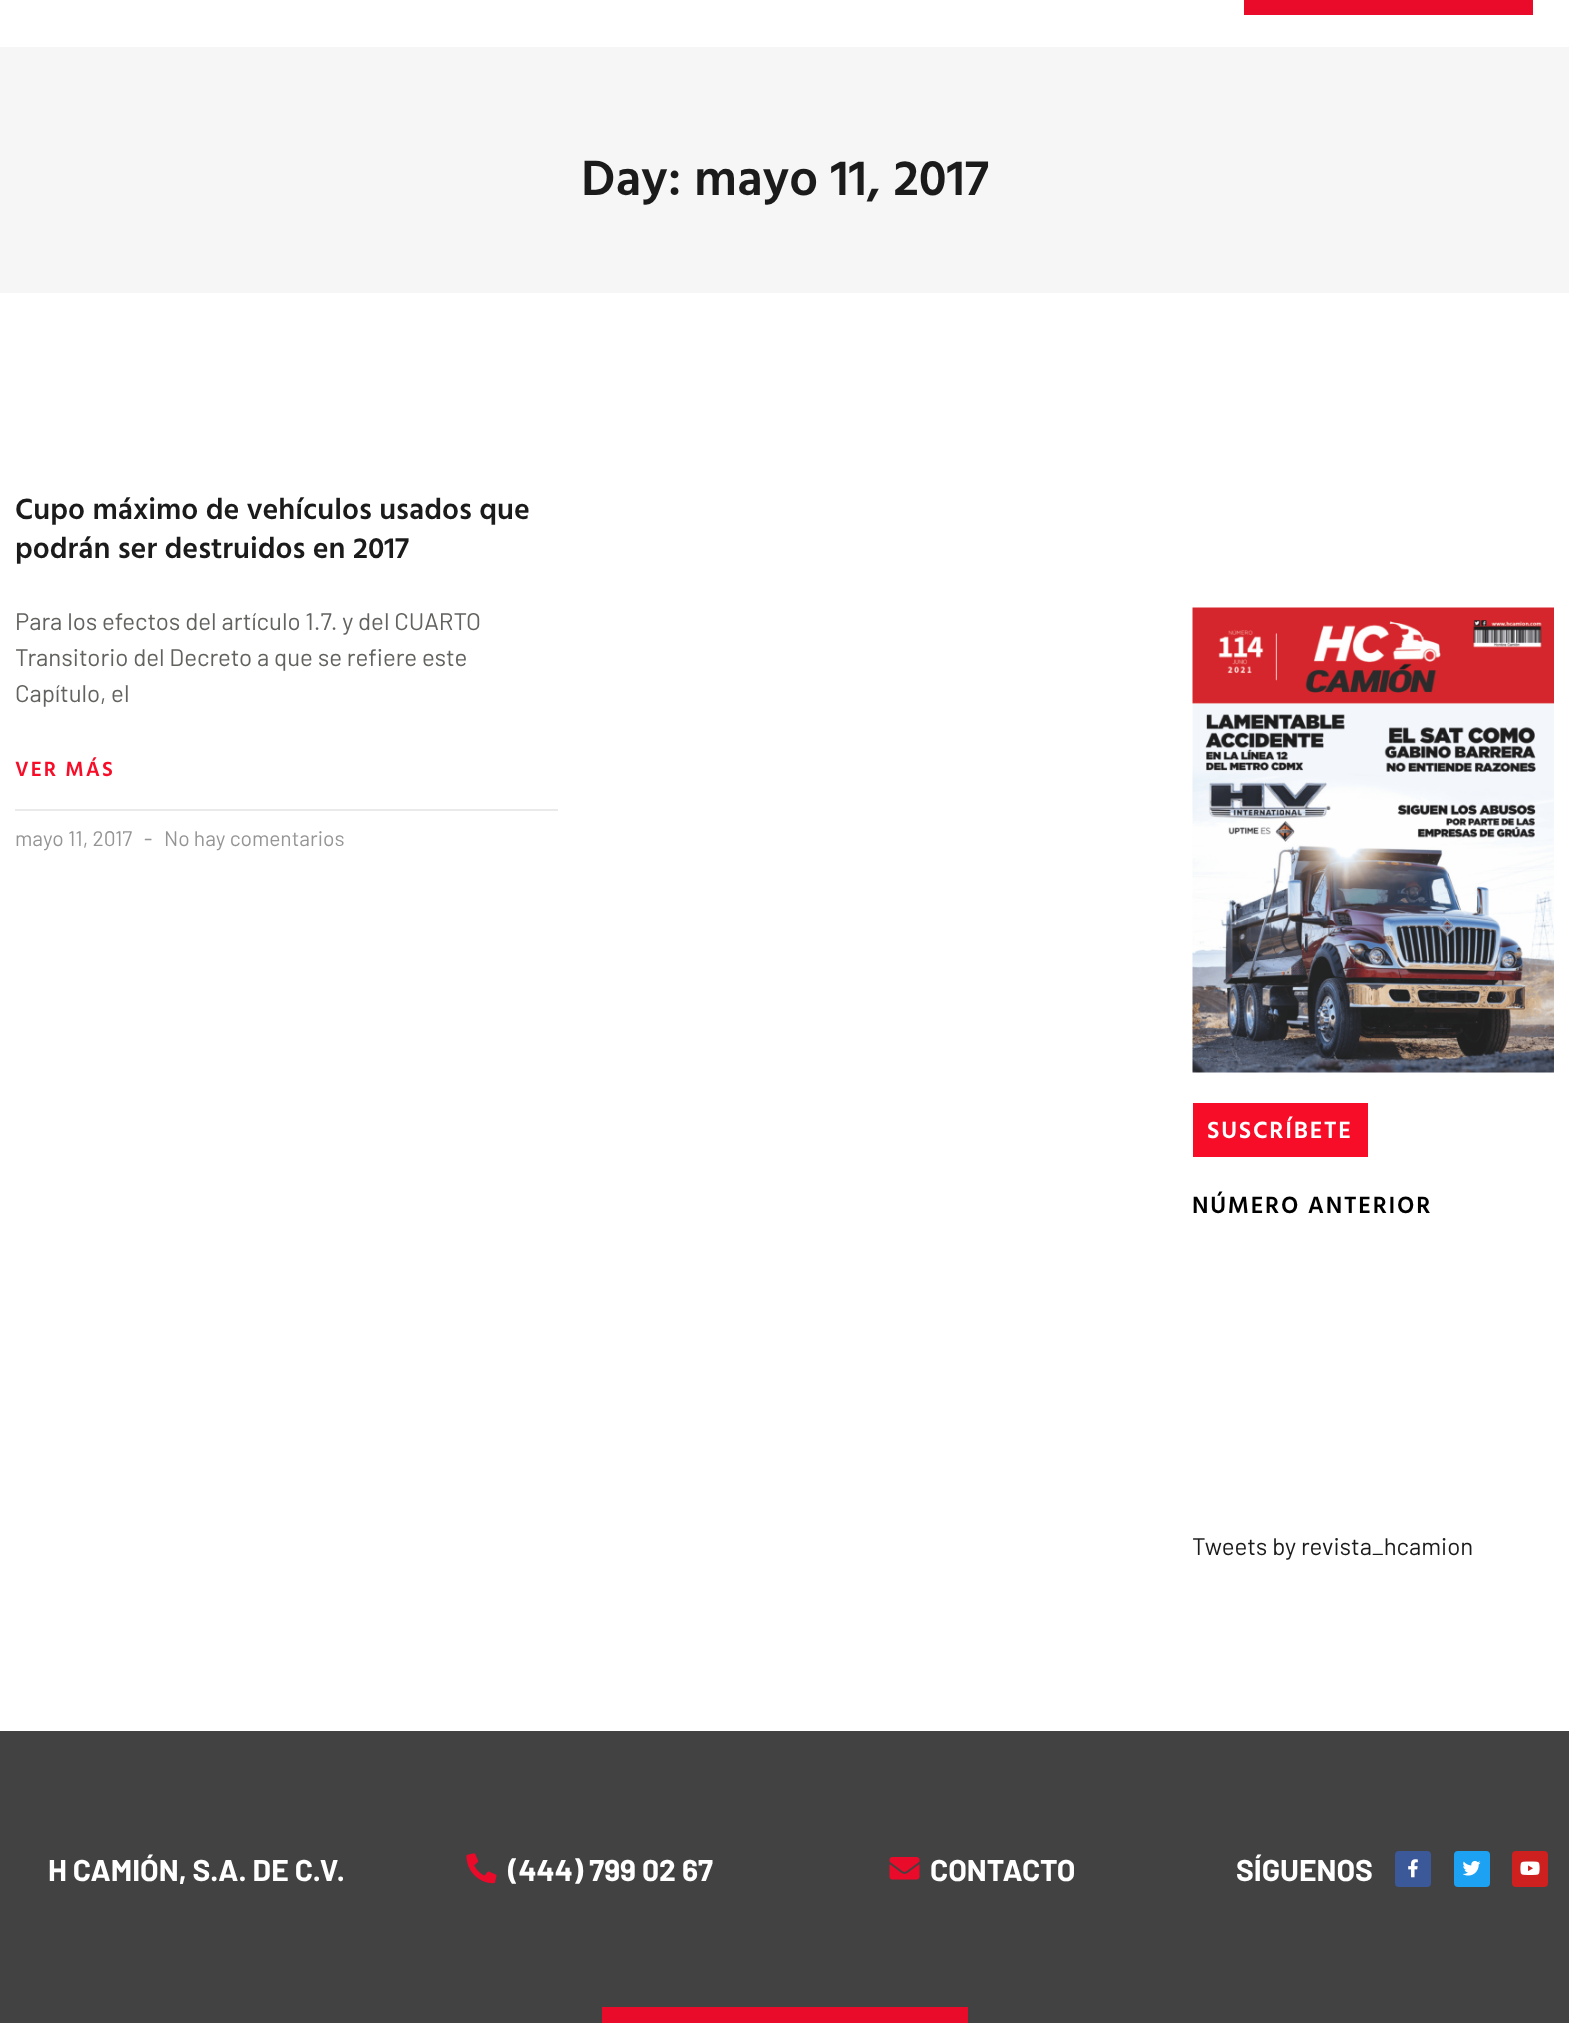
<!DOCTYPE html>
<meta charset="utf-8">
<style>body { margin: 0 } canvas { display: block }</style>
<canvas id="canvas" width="1569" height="2023"></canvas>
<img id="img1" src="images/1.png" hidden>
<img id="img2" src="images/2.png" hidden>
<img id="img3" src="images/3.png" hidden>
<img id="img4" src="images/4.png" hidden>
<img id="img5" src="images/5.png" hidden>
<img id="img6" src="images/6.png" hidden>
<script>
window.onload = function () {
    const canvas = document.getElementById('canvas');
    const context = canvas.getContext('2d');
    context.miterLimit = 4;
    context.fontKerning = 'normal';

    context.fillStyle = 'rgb(255, 255, 255)';
    context.fillRect(0, 0, 1569, 2023);
    context.fillStyle = 'rgb(234, 10, 42)';
    context.fillRect(1244, 0, 289, 15);
    context.fillStyle = 'rgb(246, 246, 246)';
    context.fillRect(0, 47, 1569, 246);
    context.fillStyle = 'rgb(234, 234, 234)';
    context.fillRect(15, 809, 543, 2);
    context.drawImage(document.getElementById('img1'), 1192, 607, 362, 466);
    context.fillStyle = 'rgb(247, 13, 40)';
    context.fillRect(1193, 1103, 175, 54);
    context.fillStyle = 'rgb(66, 66, 66)';
    context.fillRect(0, 1731, 1569, 292);
    context.drawImage(document.getElementById('img2'), 466, 1853, 31, 31);
    context.drawImage(document.getElementById('img3'), 889, 1857, 31, 23);
    context.fillStyle = 'rgb(59, 89, 152)';
    context.beginPath();
    context.roundRect(1395, 1851, 36, 36, 4);
    context.fill();
    context.drawImage(document.getElementById('img4'), 1408, 1859, 10, 19);
    context.fillStyle = 'rgb(29, 161, 242)';
    context.beginPath();
    context.roundRect(1454, 1851, 36, 36, 4);
    context.fill();
    context.drawImage(document.getElementById('img5'), 1462, 1861, 19, 15);
    context.fillStyle = 'rgb(205, 32, 31)';
    context.beginPath();
    context.roundRect(1512, 1851, 36, 36, 4);
    context.fill();
    context.drawImage(document.getElementById('img6'), 1520, 1861, 20, 14);
    context.fillStyle = 'rgb(234, 10, 42)';
    context.fillRect(602, 2007, 366, 16);
    context.font = '600 51px Hind Vadodara';
    context.fillStyle = 'rgb(27, 27, 27)';
    context.fillText('Day: mayo 11, 2017', 581, 195);
    context.font = '600 30px Hind Vadodara';
    context.fillText('Cupo máximo de vehículos usados que', 15, 519);
    context.fillText('podrán ser destruidos en 2017', 15, 558);
    context.font = '24px Barlow';
    context.fillStyle = 'rgb(98, 98, 95)';
    context.fillText('Para los efectos del artículo 1.7. y del CUARTO', 15, 630);
    context.fillText('Transitorio del Decreto a que se refiere este', 15, 666);
    context.fillText('Capítulo, el', 15, 702);
    context.letterSpacing = '2px';
    context.font = '600 21px Hind Vadodara';
    context.fillStyle = 'rgb(247, 13, 40)';
    context.fillText('VER MÁS', 15, 776);
    context.letterSpacing = '0px';
    context.font = '21px Barlow';
    context.fillStyle = 'rgb(149, 149, 149)';
    context.fillText('mayo 11, 2017', 15, 846);
    context.fillText('-', 144, 846);
    context.fillText('No hay comentarios', 164, 846);
    context.letterSpacing = '1.75px';
    context.font = '600 24px Hind Vadodara';
    context.fillStyle = 'rgb(255, 255, 255)';
    context.fillText('SUSCRÍBETE', 1207, 1138);
    context.fillStyle = 'rgb(0, 0, 0)';
    context.fillText('NÚMERO ANTERIOR', 1192, 1213);
    context.letterSpacing = '0px';
    context.font = '24px Barlow';
    context.fillStyle = 'rgb(27, 27, 27)';
    context.fillText('Tweets by revista_hcamion', 1192, 1555);
    context.font = 'bold 30px Barlow';
    context.fillStyle = 'rgb(255, 255, 255)';
    context.fillText('H CAMIÓN, S.A. DE C.V.', 48, 1881);
    context.fillText('(444) 799 02 67', 508, 1881);
    context.fillText('CONTACTO', 930, 1881);
    context.fillText('SÍGUENOS', 1236, 1881);
};
</script>
